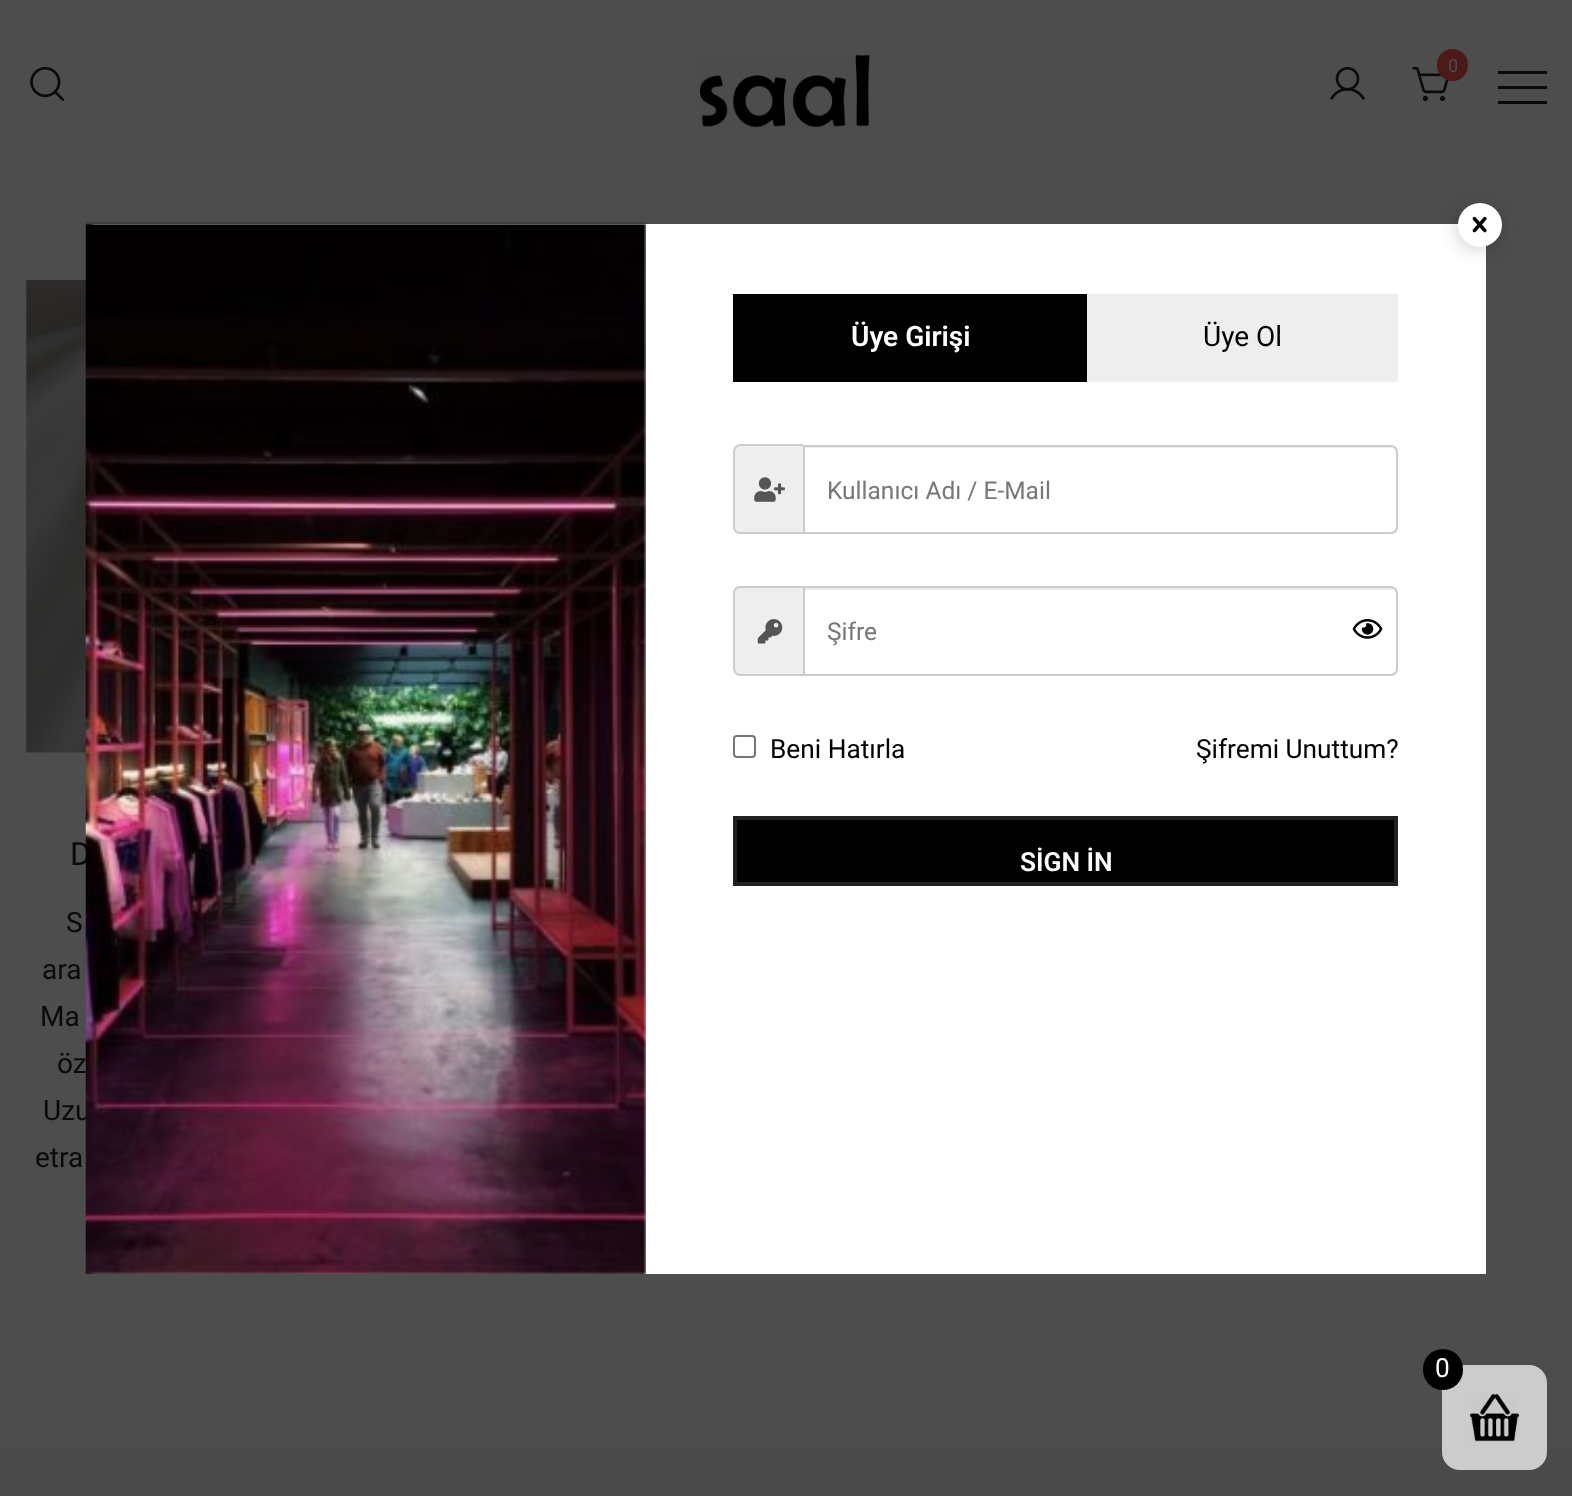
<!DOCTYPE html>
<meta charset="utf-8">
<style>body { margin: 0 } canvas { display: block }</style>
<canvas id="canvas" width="1572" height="1496"></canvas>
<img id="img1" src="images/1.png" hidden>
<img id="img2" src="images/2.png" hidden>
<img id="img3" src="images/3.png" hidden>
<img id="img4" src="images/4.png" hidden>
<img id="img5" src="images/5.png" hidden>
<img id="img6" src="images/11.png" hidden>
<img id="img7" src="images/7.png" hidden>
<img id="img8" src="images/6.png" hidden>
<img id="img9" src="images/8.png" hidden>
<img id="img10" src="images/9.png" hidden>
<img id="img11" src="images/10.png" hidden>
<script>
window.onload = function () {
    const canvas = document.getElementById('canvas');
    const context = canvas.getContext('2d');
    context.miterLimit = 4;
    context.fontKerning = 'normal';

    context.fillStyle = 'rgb(77, 77, 77)';
    context.fillRect(0, 0, 1572, 1496);
    context.drawImage(document.getElementById('img1'), 30, 66, 35, 35);
    context.drawImage(document.getElementById('img2'), 698, 54, 172, 75);
    context.drawImage(document.getElementById('img3'), 1330, 66, 35, 34);
    context.drawImage(document.getElementById('img4'), 1412, 66, 37, 35);
    context.fillStyle = 'rgb(77, 26, 26)';
    context.beginPath();
    context.roundRect(1438, 50, 29, 30, 14.5);
    context.fill();
    context.strokeStyle = 'rgb(77, 26, 26)';
    context.lineWidth = 2;
    context.stroke();
    context.fillStyle = 'rgb(10, 10, 10)';
    context.fillRect(1498, 71, 49, 3);
    context.fillRect(1498, 86, 49, 3);
    context.fillRect(1498, 101, 49, 3);
    context.drawImage(document.getElementById('img5'), 26, 280, 60, 473);
    context.fillStyle = 'rgb(74, 74, 74)';
    context.fillRect(0, 1449, 1572, 47);
    context.fillStyle = 'rgb(204, 204, 204)';
    context.beginPath();
    context.roundRect(1443, 1366, 103, 103, 17);
    context.fill();
    context.strokeStyle = 'rgb(204, 204, 204)';
    context.stroke();
    context.fillStyle = 'rgb(0, 0, 0)';
    context.beginPath();
    context.roundRect(1423, 1349, 40, 41, 20);
    context.fill();
    context.drawImage(document.getElementById('img6'), 1470, 1393, 49, 49);
    context.font = '18px Roboto';
    context.fillStyle = 'rgb(77, 77, 77)';
    context.fillText('0', 1448, 72);
    context.font = '32px Roboto';
    context.fillStyle = 'rgb(10, 10, 10)';
    context.fillText('D', 70, 865);
    context.font = '28px Roboto';
    context.fillText('S', 66, 932);
    context.fillText('ara', 42, 979);
    context.fillText('Ma', 40, 1026);
    context.fillText('öz', 57, 1073);
    context.fillText('Uzu', 43, 1120);
    context.fillText('etra', 35, 1167);
    context.fillStyle = 'rgb(255, 255, 255)';
    context.beginPath();
    context.roundRect(86, 224, 1400, 1050, 9);
    context.fill();
    context.drawImage(document.getElementById('img7'), 85, 222, 562, 1052);
    context.fillRect(646, 224, 840, 1050);
    context.fillStyle = 'rgba(0, 0, 0, 0.17)';
    context.filter = 'blur(9px)';
    context.beginPath();
    context.roundRect(1456, 207, 44, 43, 21.5);
    context.fill();
    context.filter = 'none';
    context.fillStyle = 'rgb(255, 255, 255)';
    context.beginPath();
    context.arc(1480, 225, 22, 0, 2 * Math.PI);
    context.fill();
    context.drawImage(document.getElementById('img8'), 1472, 216, 15, 17);
    context.fillStyle = 'rgb(0, 0, 0)';
    context.fillRect(733, 294, 354, 88);
    context.font = '600 28px Roboto';
    context.fillStyle = 'rgb(255, 255, 255)';
    context.fillText('Üye Girişi', 851, 346);
    context.fillStyle = 'rgb(238, 238, 238)';
    context.fillRect(1087, 294, 311, 88);
    context.font = '28px Roboto';
    context.fillStyle = 'rgb(0, 0, 0)';
    context.fillText('Üye Ol', 1203, 346);
    context.fillStyle = 'rgb(238, 238, 238)';
    context.beginPath();
    context.roundRect(733, 445, 70, 89, [7, 0, 0, 7]);
    context.fill();
    context.fillStyle = 'rgb(204, 204, 204)';
    context.beginPath();
    context.moveTo(740, 444);
    context.lineTo(803, 444);
    context.lineTo(803, 534);
    context.lineTo(740, 534);
    context.bezierCurveTo(736, 534, 733, 531, 733, 527);
    context.lineTo(733, 452);
    context.bezierCurveTo(733, 448, 736, 444, 740, 444);
    context.closePath();
    context.moveTo(740, 446);
    context.lineTo(803, 446);
    context.lineTo(803, 532);
    context.lineTo(740, 532);
    context.bezierCurveTo(737, 532, 735, 530, 735, 527);
    context.lineTo(735, 452);
    context.bezierCurveTo(735, 449, 737, 446, 740, 446);
    context.closePath();
    context.fill('evenodd');
    context.drawImage(document.getElementById('img9'), 754, 477, 31, 25);
    context.fillStyle = 'rgb(236, 236, 236)';
    context.beginPath();
    context.moveTo(805, 448);
    context.lineTo(1391, 448);
    context.bezierCurveTo(1394, 448, 1396, 450, 1396, 453);
    context.lineTo(1396, 528);
    context.lineTo(1396, 531);
    context.bezierCurveTo(1396, 530, 1397, 528, 1397, 527);
    context.lineTo(1397, 451);
    context.bezierCurveTo(1397, 448, 1395, 446, 1392, 446);
    context.lineTo(805, 446);
    context.closePath();
    context.fill();
    context.beginPath();
    context.roundRect(804, 446, 593, 87, [0, 6, 6, 0]);
    context.stroke();
    context.font = '24.5px Roboto';
    context.fillStyle = 'rgb(119, 119, 119)';
    context.fillText('Kullanıcı Adı / E-Mail', 827, 499);
    context.fillStyle = 'rgb(238, 238, 238)';
    context.beginPath();
    context.roundRect(733, 586, 70, 90, [7, 0, 0, 7]);
    context.fill();
    context.fillStyle = 'rgb(204, 204, 204)';
    context.beginPath();
    context.moveTo(740, 586);
    context.lineTo(803, 586);
    context.lineTo(803, 676);
    context.lineTo(740, 676);
    context.bezierCurveTo(736, 676, 733, 672, 733, 668);
    context.lineTo(733, 593);
    context.bezierCurveTo(733, 589, 736, 586, 740, 586);
    context.closePath();
    context.moveTo(740, 588);
    context.lineTo(803, 588);
    context.lineTo(803, 674);
    context.lineTo(740, 674);
    context.bezierCurveTo(737, 674, 735, 671, 735, 668);
    context.lineTo(735, 593);
    context.bezierCurveTo(735, 590, 737, 588, 740, 588);
    context.closePath();
    context.fill('evenodd');
    context.drawImage(document.getElementById('img10'), 757, 619, 26, 25);
    context.fillStyle = 'rgb(236, 236, 236)';
    context.beginPath();
    context.moveTo(805, 590);
    context.lineTo(1391, 590);
    context.bezierCurveTo(1394, 590, 1396, 592, 1396, 595);
    context.lineTo(1396, 670);
    context.lineTo(1396, 673);
    context.bezierCurveTo(1396, 672, 1397, 670, 1397, 669);
    context.lineTo(1397, 593);
    context.bezierCurveTo(1397, 590, 1395, 588, 1392, 588);
    context.lineTo(805, 588);
    context.closePath();
    context.fill();
    context.beginPath();
    context.roundRect(804, 587, 593, 88, [0, 6, 6, 0]);
    context.stroke();
    context.fillStyle = 'rgb(119, 119, 119)';
    context.fillText('Şifre', 827, 640);
    context.drawImage(document.getElementById('img11'), 1352, 619, 31, 20);
    context.beginPath();
    context.roundRect(734, 736, 21, 21, 3);
    context.strokeStyle = 'rgb(118, 118, 118)';
    context.stroke();
    context.font = '26.25px Roboto';
    context.fillStyle = 'rgb(0, 0, 0)';
    context.fillText('Beni Hatırla', 770, 758);
    context.fillText('Şifremi Unuttum?', 1196, 758);
    context.beginPath();
    context.rect(735, 818, 661, 66);
    context.fill();
    context.strokeStyle = 'rgb(33, 33, 33)';
    context.lineWidth = 4;
    context.stroke();
    context.font = '600 26.25px Roboto';
    context.fillStyle = 'rgb(255, 255, 255)';
    context.fillText('SİGN İN', 1020, 871);
    context.font = '26.25px Roboto';
    context.fillText('0', 1435, 1377);
};
</script>
